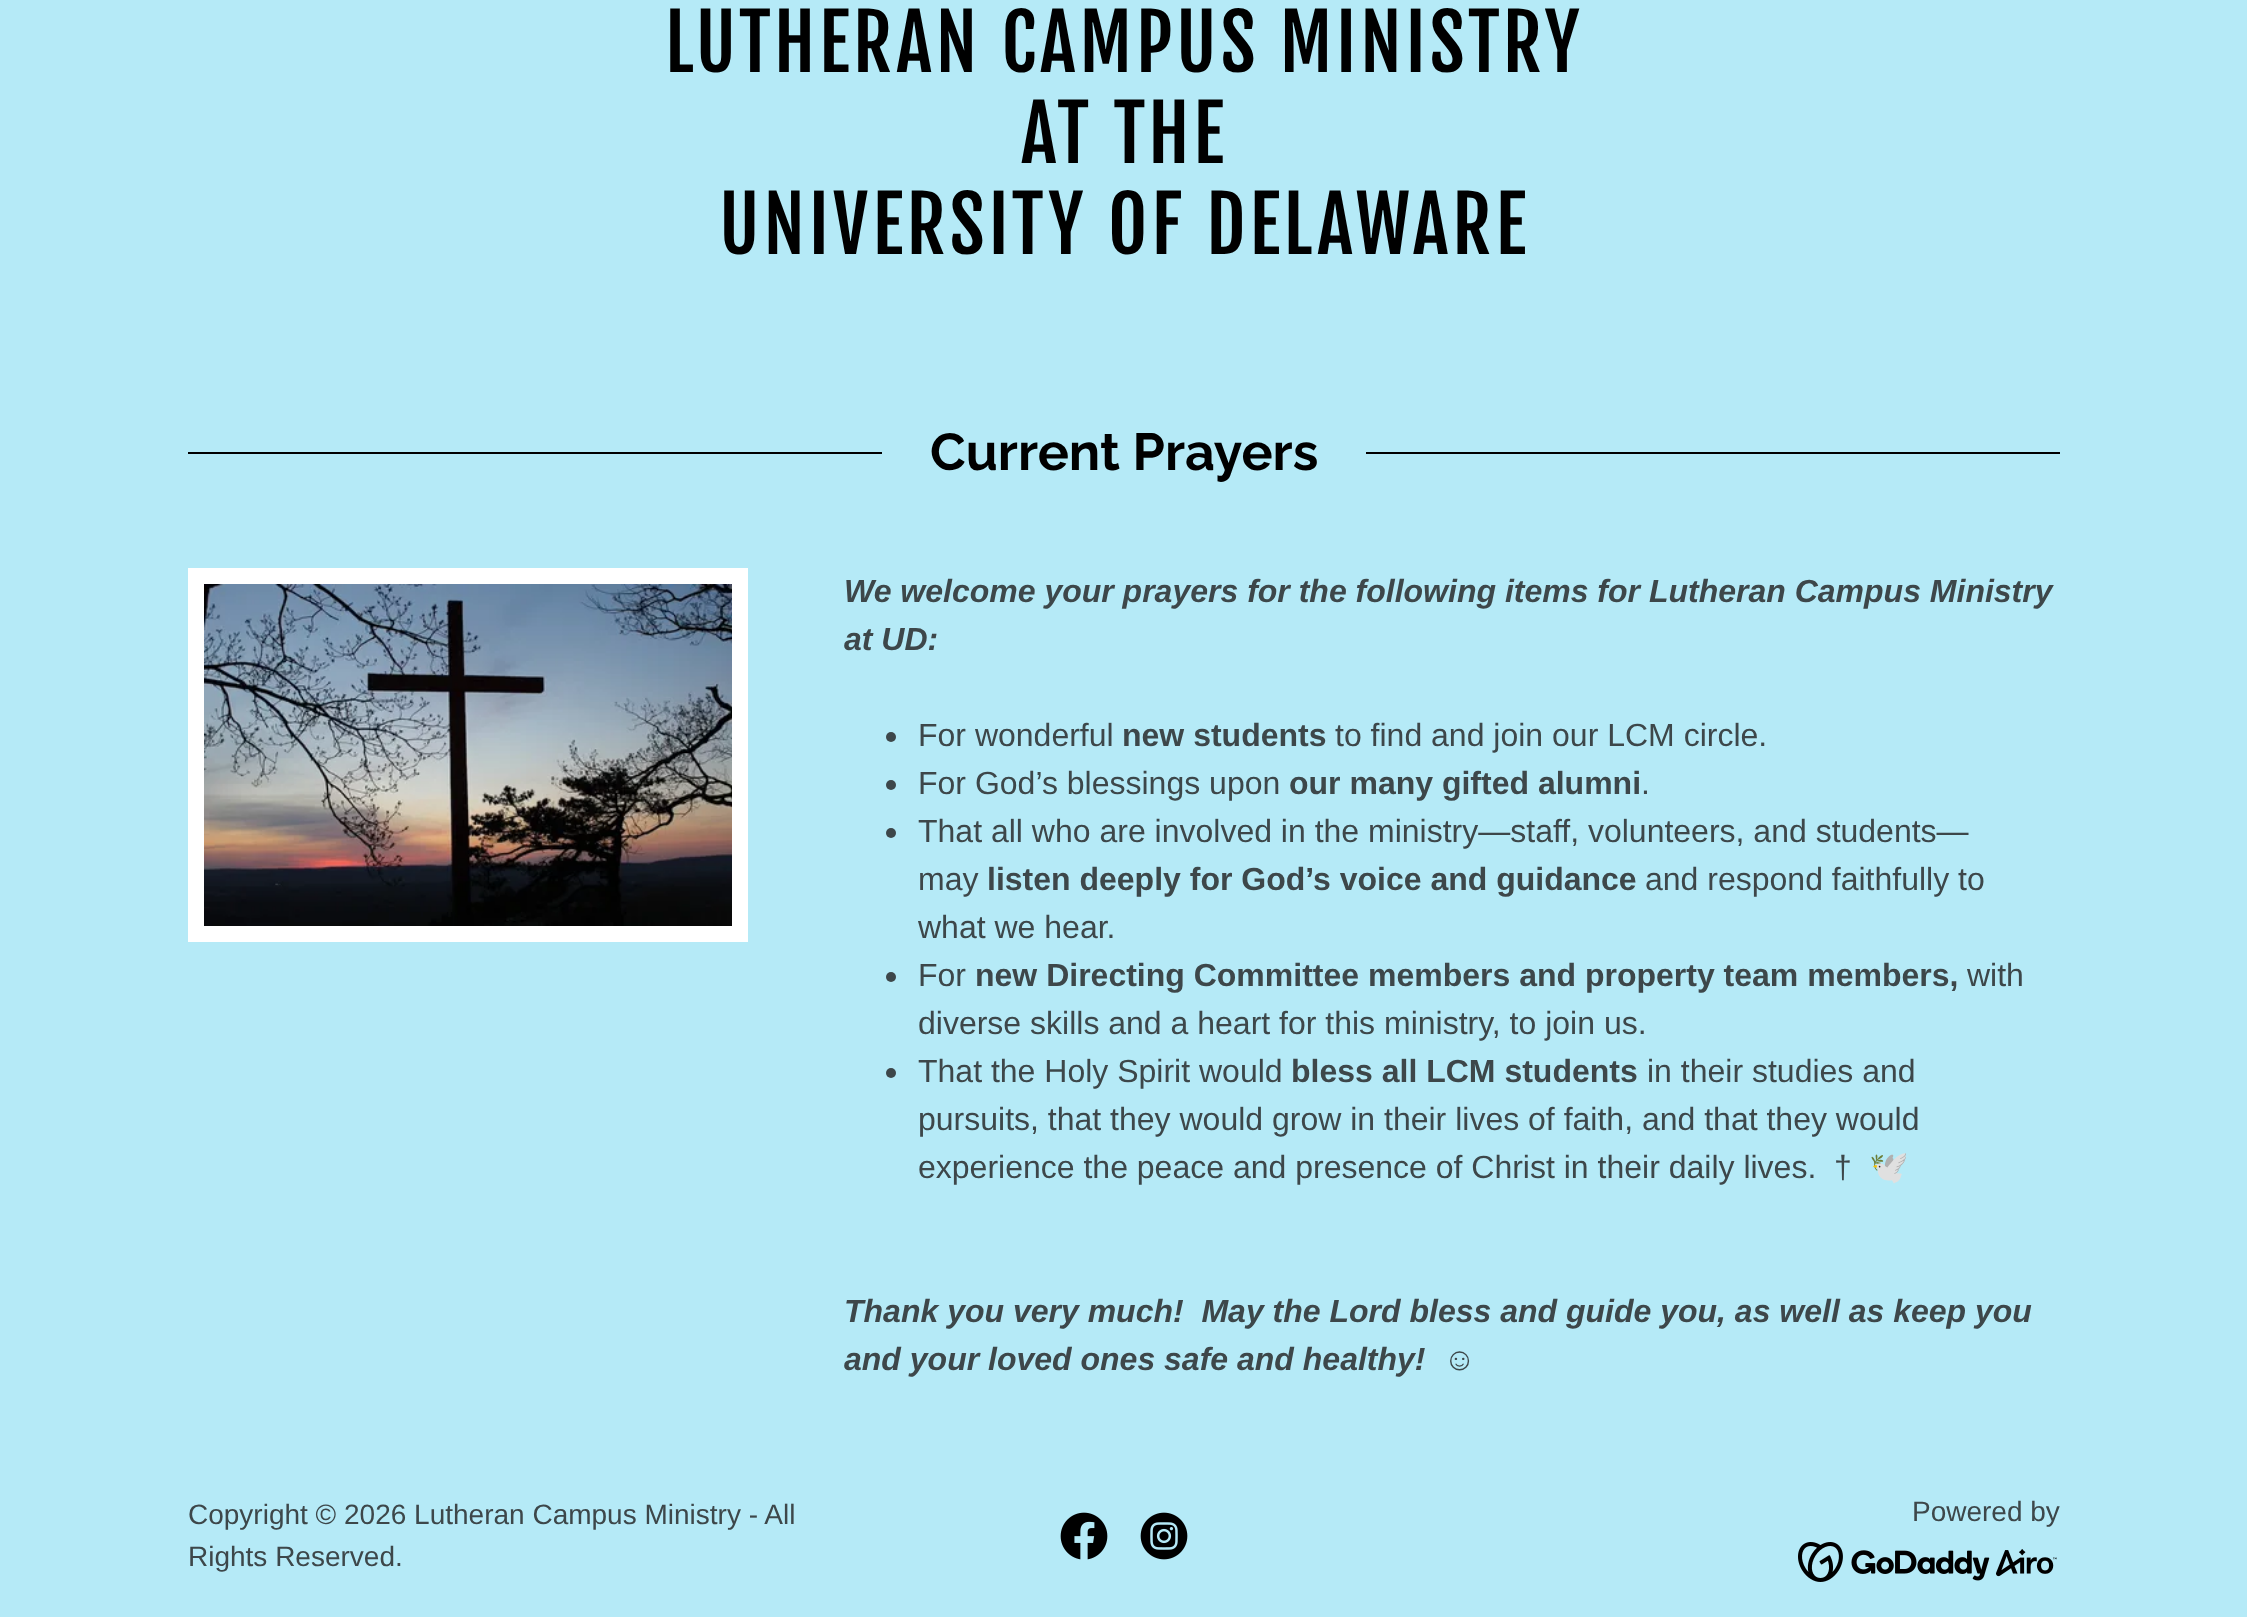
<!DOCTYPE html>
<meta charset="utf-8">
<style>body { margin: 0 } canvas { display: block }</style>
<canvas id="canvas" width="2247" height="1617"></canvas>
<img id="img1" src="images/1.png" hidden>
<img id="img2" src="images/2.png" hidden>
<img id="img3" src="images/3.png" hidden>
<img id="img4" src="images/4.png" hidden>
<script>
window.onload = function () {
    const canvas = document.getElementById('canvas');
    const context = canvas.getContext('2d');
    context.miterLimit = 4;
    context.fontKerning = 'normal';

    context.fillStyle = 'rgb(181, 234, 247)';
    context.fillRect(0, 0, 2247, 1617);
    context.fillStyle = 'rgb(0, 0, 0)';
    context.fillRect(188, 452, 694, 2);
    context.fillRect(1366, 452, 694, 2);
    context.strokeStyle = 'rgb(255, 255, 255)';
    context.lineWidth = 16;
    context.strokeRect(196, 576, 544, 358);
    context.drawImage(document.getElementById('img1'), 204, 584, 528, 342);
    context.fillStyle = 'rgb(61, 71, 74)';
    context.beginPath();
    context.arc(891, 737, 5, 0, 2 * Math.PI);
    context.fill();
    context.beginPath();
    context.arc(891, 785, 5, 0, 2 * Math.PI);
    context.fill();
    context.beginPath();
    context.arc(891, 833, 5, 0, 2 * Math.PI);
    context.fill();
    context.beginPath();
    context.arc(891, 977, 5, 0, 2 * Math.PI);
    context.fill();
    context.beginPath();
    context.arc(891, 1073, 5, 0, 2 * Math.PI);
    context.fill();
    context.drawImage(document.getElementById('img2'), 1060, 1512, 48, 48);
    context.drawImage(document.getElementById('img3'), 1140, 1512, 48, 48);
    context.drawImage(document.getElementById('img4'), 1798, 1542, 259, 40);
    context.letterSpacing = '4px';
    context.font = '76px Fjalla One';
    context.fillStyle = 'rgb(0, 0, 0)';
    context.fillText('LUTHERAN CAMPUS MINISTRY', 665, 72);
    context.fillText('AT THE', 1021, 163);
    context.fillText('UNIVERSITY OF DELAWARE', 719, 254);
    context.letterSpacing = '0px';
    context.font = 'bold 52px Raleway';
    context.fillText('Current Prayers', 930, 470);
    context.font = 'italic bold 32px Liberation Sans';
    context.fillStyle = 'rgb(61, 71, 74)';
    context.fillText('We welcome your prayers for the following items for Lutheran Campus Ministry', 844, 602);
    context.fillText('at UD:', 844, 650);
    context.font = '32px Liberation Sans';
    context.fillText('For wonderful', 918, 746);
    context.font = 'bold 32px Liberation Sans';
    context.fillText('new students', 1122, 746);
    context.font = '32px Liberation Sans';
    context.fillText('to find and join our LCM circle.', 1335, 746);
    context.fillText('For God’s blessings upon', 918, 794);
    context.font = 'bold 32px Liberation Sans';
    context.fillText('our many gifted alumni', 1289, 794);
    context.font = '32px Liberation Sans';
    context.fillText('.', 1641, 794);
    context.fillText('That all who are involved in the ministry—staff, volunteers, and students—', 918, 842);
    context.fillText('may', 918, 890);
    context.font = 'bold 32px Liberation Sans';
    context.fillText('listen deeply for God’s voice and guidance', 987, 890);
    context.font = '32px Liberation Sans';
    context.fillText('and respond faithfully to', 1645, 890);
    context.fillText('what we hear.', 918, 938);
    context.fillText('For', 918, 986);
    context.font = 'bold 32px Liberation Sans';
    context.fillText('new Directing Committee members and property team members,', 975, 986);
    context.font = '32px Liberation Sans';
    context.fillText('with', 1967, 986);
    context.fillText('diverse skills and a heart for this ministry, to join us.', 918, 1034);
    context.fillText('That the Holy Spirit would', 918, 1082);
    context.font = 'bold 32px Liberation Sans';
    context.fillText('bless all LCM students', 1291, 1082);
    context.font = '32px Liberation Sans';
    context.fillText('in their studies and', 1647, 1082);
    context.fillText('pursuits, that they would grow in their lives of faith, and that they would', 918, 1130);
    context.fillText('experience the peace and presence of Christ in their daily lives.  †', 918, 1178);
    context.font = '32px Noto Color Emoji';
    context.fillText('🕊️', 1869, 1178);
    context.font = 'italic bold 32px Liberation Sans';
    context.fillText('Thank you very much!  May the Lord bless and guide you, as well as keep you', 844, 1322);
    context.fillText('and your loved ones safe and healthy!  ☺', 844, 1370);
    context.font = '28px Liberation Sans';
    context.fillText('Copyright © 2026 Lutheran Campus Ministry - All', 188, 1524);
    context.fillText('Rights Reserved.', 188, 1566);
    context.fillText('Powered by', 1912, 1521);
};
</script>
